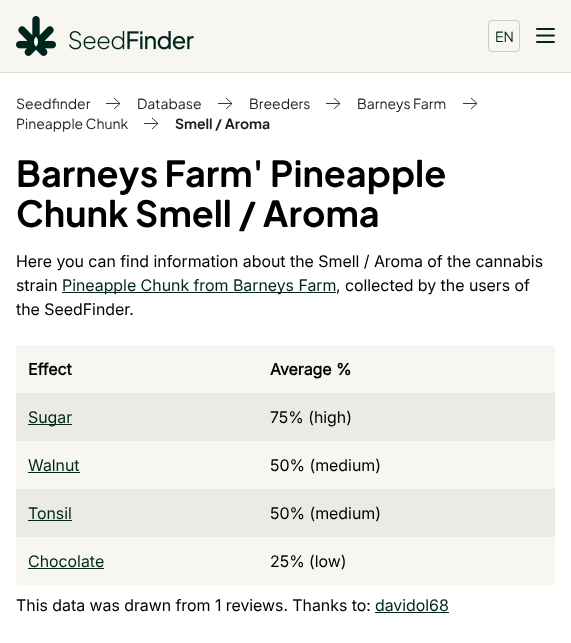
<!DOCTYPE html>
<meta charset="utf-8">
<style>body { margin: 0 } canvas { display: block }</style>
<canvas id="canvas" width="571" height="643"></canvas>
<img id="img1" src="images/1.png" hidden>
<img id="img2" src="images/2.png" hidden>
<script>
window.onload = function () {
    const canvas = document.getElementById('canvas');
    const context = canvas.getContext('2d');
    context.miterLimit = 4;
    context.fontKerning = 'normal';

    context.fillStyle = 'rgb(255, 255, 255)';
    context.fillRect(0, 0, 571, 643);
    context.fillStyle = 'rgb(247, 246, 241)';
    context.fillRect(0, 0, 571, 72);
    context.fillStyle = 'rgb(218, 218, 218)';
    context.fillRect(0, 72, 571, 1);
    context.drawImage(document.getElementById('img1'), 16, 16, 178, 40);
    context.beginPath();
    context.roundRect(488.5, 20.5, 31, 31, 3.5);
    context.strokeStyle = 'rgb(204, 203, 203)';
    context.stroke();
    context.drawImage(document.getElementById('img2'), 536, 28, 19, 15);
    context.beginPath();
    context.moveTo(114, 109);
    context.lineTo(120, 103.5);
    context.moveTo(120, 103.5);
    context.lineTo(114, 98);
    context.moveTo(120, 103.5);
    context.lineTo(106, 103.5);
    context.strokeStyle = 'rgb(49, 57, 53)';
    context.stroke();
    context.beginPath();
    context.moveTo(226, 109);
    context.lineTo(232, 103.5);
    context.moveTo(232, 103.5);
    context.lineTo(226, 98);
    context.moveTo(232, 103.5);
    context.lineTo(218, 103.5);
    context.stroke();
    context.beginPath();
    context.moveTo(334, 109);
    context.lineTo(340, 103.5);
    context.moveTo(340, 103.5);
    context.lineTo(334, 98);
    context.moveTo(340, 103.5);
    context.lineTo(326, 103.5);
    context.stroke();
    context.beginPath();
    context.moveTo(471, 109);
    context.lineTo(477, 103.5);
    context.moveTo(477, 103.5);
    context.lineTo(471, 98);
    context.moveTo(477, 103.5);
    context.lineTo(463, 103.5);
    context.stroke();
    context.beginPath();
    context.moveTo(152, 129);
    context.lineTo(158, 123.5);
    context.moveTo(158, 123.5);
    context.lineTo(152, 118);
    context.moveTo(158, 123.5);
    context.lineTo(144, 123.5);
    context.stroke();
    context.fillStyle = 'rgb(0, 37, 28)';
    context.fillRect(62, 292, 274, 1);
    context.fillStyle = 'rgb(247, 246, 241)';
    context.beginPath();
    context.roundRect(16, 345, 539, 240, 4);
    context.fill();
    context.fillStyle = 'rgb(235, 234, 228)';
    context.fillRect(16, 393, 539, 48);
    context.fillStyle = 'rgb(0, 37, 28)';
    context.fillRect(28, 424, 44, 1);
    context.fillRect(28, 472, 52, 1);
    context.fillStyle = 'rgb(235, 234, 228)';
    context.fillRect(16, 489, 539, 48);
    context.fillStyle = 'rgb(0, 37, 28)';
    context.fillRect(28, 520, 44, 1);
    context.fillRect(28, 568, 76, 1);
    context.fillRect(375, 612, 74, 1);
    context.font = '14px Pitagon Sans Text';
    context.fillText('EN', 495, 42);
    context.fillStyle = 'rgb(30, 30, 30)';
    context.fillText('Seedfinder', 16, 109);
    context.fillText('Database', 137, 109);
    context.fillText('Breeders', 249, 109);
    context.fillText('Barneys Farm', 357, 109);
    context.fillText('Pineapple Chunk', 16, 129);
    context.font = 'bold 14px Pitagon Sans Text';
    context.fillText('Smell / Aroma', 175, 129);
    context.font = 'bold 36px Pitagon Sans Text';
    context.fillStyle = 'rgb(0, 0, 0)';
    context.fillText('Barneys Farm\' Pineapple', 16, 187);
    context.fillText('Chunk Smell / Aroma', 16, 227);
    context.font = '16px Inter';
    context.fillText('Here you can find information about the Smell / Aroma of the cannabis', 16, 267);
    context.fillText('strain', 16, 291);
    context.fillStyle = 'rgb(0, 37, 28)';
    context.fillText('Pineapple Chunk from Barneys Farm', 62, 291);
    context.fillStyle = 'rgb(0, 0, 0)';
    context.fillText(', collected by the users of', 336, 291);
    context.fillText('the SeedFinder.', 16, 315);
    context.font = 'bold 16px Inter';
    context.fillText('Effect', 28, 375);
    context.fillText('Average %', 270, 375);
    context.font = '16px Inter';
    context.fillStyle = 'rgb(0, 37, 28)';
    context.fillText('Sugar', 28, 423);
    context.fillStyle = 'rgb(0, 0, 0)';
    context.fillText('75% (high)', 270, 423);
    context.fillStyle = 'rgb(0, 37, 28)';
    context.fillText('Walnut', 28, 471);
    context.fillStyle = 'rgb(0, 0, 0)';
    context.fillText('50% (medium)', 270, 471);
    context.fillStyle = 'rgb(0, 37, 28)';
    context.fillText('Tonsil', 28, 519);
    context.fillStyle = 'rgb(0, 0, 0)';
    context.fillText('50% (medium)', 270, 519);
    context.fillStyle = 'rgb(0, 37, 28)';
    context.fillText('Chocolate', 28, 567);
    context.fillStyle = 'rgb(0, 0, 0)';
    context.fillText('25% (low)', 270, 567);
    context.fillText('This data was drawn from 1 reviews. Thanks to:', 16, 611);
    context.fillStyle = 'rgb(0, 37, 28)';
    context.fillText('davidol68', 375, 611);
};
</script>
